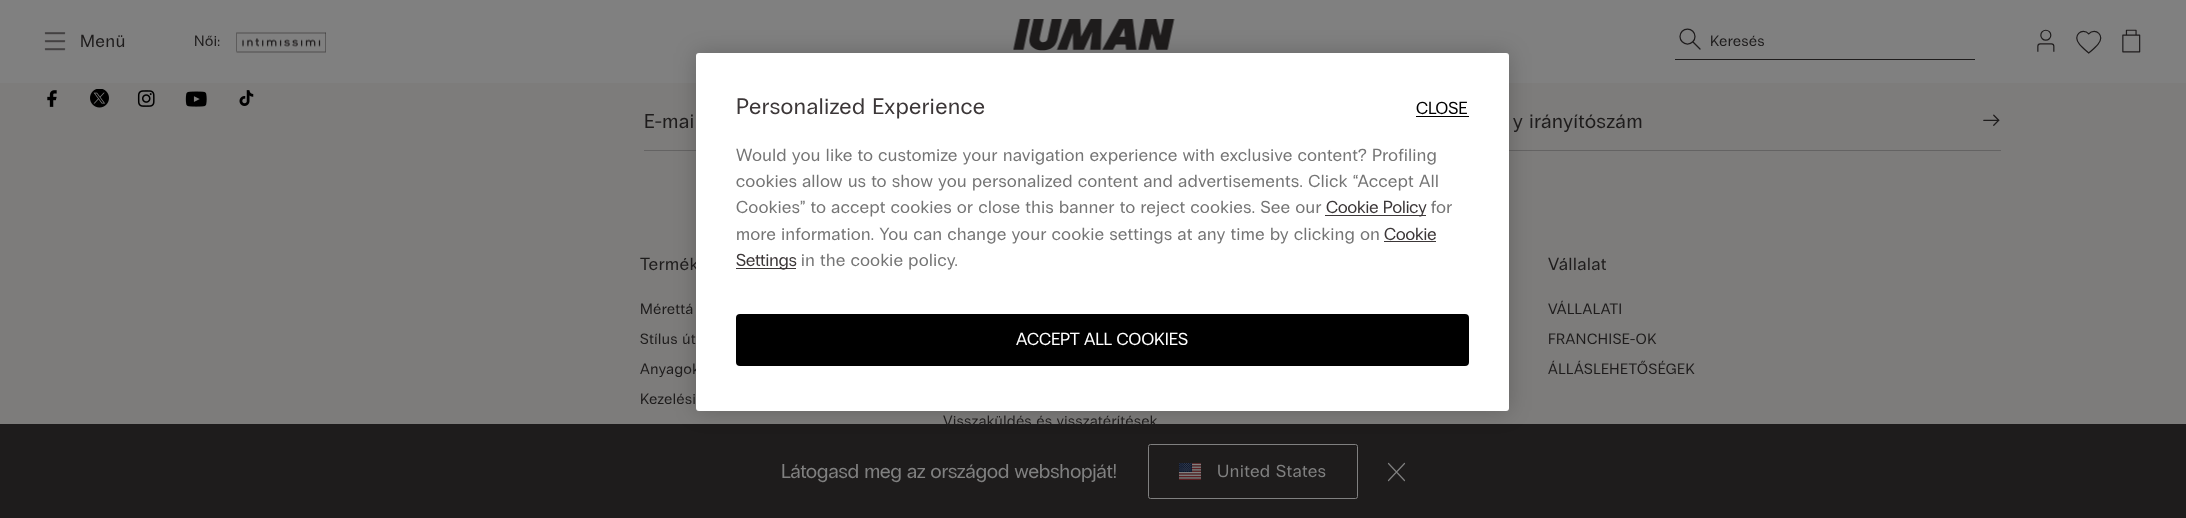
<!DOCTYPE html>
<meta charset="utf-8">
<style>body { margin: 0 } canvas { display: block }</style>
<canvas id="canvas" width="2186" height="518"></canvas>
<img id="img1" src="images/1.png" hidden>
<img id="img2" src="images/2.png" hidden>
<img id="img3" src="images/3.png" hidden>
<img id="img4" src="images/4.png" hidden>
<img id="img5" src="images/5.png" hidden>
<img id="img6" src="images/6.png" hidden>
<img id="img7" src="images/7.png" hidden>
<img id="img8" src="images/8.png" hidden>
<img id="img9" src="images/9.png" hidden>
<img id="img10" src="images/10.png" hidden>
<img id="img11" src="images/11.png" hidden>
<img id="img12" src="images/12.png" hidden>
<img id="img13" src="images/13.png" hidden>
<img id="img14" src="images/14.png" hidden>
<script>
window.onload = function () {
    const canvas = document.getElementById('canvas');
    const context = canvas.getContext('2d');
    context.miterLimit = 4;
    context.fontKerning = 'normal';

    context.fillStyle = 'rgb(125, 124, 123)';
    context.fillRect(0, 0, 2186, 518);
    context.fillStyle = 'rgb(128, 128, 128)';
    context.fillRect(0, 0, 2186, 83);
    context.drawImage(document.getElementById('img1'), 44, 32, 22, 19);
    context.drawImage(document.getElementById('img2'), 236, 32, 90, 21);
    context.drawImage(document.getElementById('img3'), 1013, 19, 162, 32);
    context.fillStyle = 'rgb(30, 28, 28)';
    context.fillRect(1675, 59, 300, 1);
    context.drawImage(document.getElementById('img4'), 1679, 28, 22, 22);
    context.drawImage(document.getElementById('img5'), 2037, 29, 18, 23);
    context.drawImage(document.getElementById('img6'), 2076, 30, 26, 24);
    context.drawImage(document.getElementById('img7'), 2122, 29, 19, 24);
    context.drawImage(document.getElementById('img8'), 47, 90, 10, 17);
    context.drawImage(document.getElementById('img9'), 90, 89, 19, 19);
    context.drawImage(document.getElementById('img10'), 137, 90, 18, 17);
    context.drawImage(document.getElementById('img11'), 185, 91, 22, 16);
    context.drawImage(document.getElementById('img12'), 239, 90, 15, 16);
    context.fillStyle = 'rgb(100, 99, 99)';
    context.fillRect(644, 150, 52, 1);
    context.fillRect(1509, 150, 492, 1);
    context.drawImage(document.getElementById('img13'), 1983, 114, 17, 12);
    context.fillStyle = 'rgb(30, 28, 28)';
    context.fillRect(0, 424, 2186, 94);
    context.beginPath();
    context.roundRect(1148.5, 444.5, 209, 54, 2);
    context.strokeStyle = 'rgb(128, 128, 128)';
    context.stroke();
    context.fillStyle = 'rgba(0, 0, 0, 0.2)';
    context.filter = 'blur(11px)';
    context.beginPath();
    context.roundRect(696, 53, 813, 358, 3);
    context.fill();
    context.filter = 'none';
    context.drawImage(document.getElementById('img14'), 1179, 463, 22, 17);
    context.beginPath();
    context.moveTo(1404.5, 463.5);
    context.lineTo(1388.5, 480.5);
    context.moveTo(1388.5, 463.5);
    context.lineTo(1404.5, 480.5);
    context.lineWidth = 1.2;
    context.lineCap = 'round';
    context.stroke();
    context.letterSpacing = '0.75px';
    context.font = '17.5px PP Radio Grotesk';
    context.fillStyle = 'rgb(30, 28, 28)';
    context.fillText('Menü', 80, 47);
    context.letterSpacing = '0.6px';
    context.font = '15px PP Radio Grotesk';
    context.fillText('Női:', 194, 46);
    context.fillText('Keresés', 1710, 46);
    context.letterSpacing = '0.75px';
    context.font = '20px PP Radio Grotesk';
    context.fillText('E-mai', 644, 128);
    context.fillText('y irányítószám', 1513, 128);
    context.font = '17.5px PP Radio Grotesk';
    context.fillText('Termék', 640, 270);
    context.letterSpacing = '0.6px';
    context.font = '15px PP Radio Grotesk';
    context.fillText('Mérettá', 640, 314);
    context.fillText('Stílus út', 640, 344);
    context.fillText('Anyagok', 640, 374);
    context.fillText('Kezelési', 640, 404);
    context.letterSpacing = '0.75px';
    context.font = '17.5px PP Radio Grotesk';
    context.fillText('Vállalat', 1548, 270);
    context.letterSpacing = '0.6px';
    context.font = '15px PP Radio Grotesk';
    context.fillText('VÁLLALATI', 1548, 314);
    context.fillText('FRANCHISE-OK', 1548, 344);
    context.fillText('ÁLLÁSLEHETŐSÉGEK', 1548, 374);
    context.fillText('Visszaküldés és visszatérítések', 943, 426);
    context.fillStyle = 'rgb(255, 255, 255)';
    context.beginPath();
    context.roundRect(696, 53, 813, 358, 3);
    context.fill();
    context.letterSpacing = '0.75px';
    context.font = '22.5px PP Radio Grotesk';
    context.fillStyle = 'rgb(60, 55, 56)';
    context.fillText('Personalized Experience', 736, 114);
    context.letterSpacing = '0.55px';
    context.font = '17.5px PP Radio Grotesk';
    context.fillStyle = 'rgb(117, 117, 117)';
    context.fillText('Would you like to customize your navigation experience with exclusive content? Profiling', 736, 161);
    context.fillText('cookies allow us to show you personalized content and advertisements. Click “Accept All', 736, 187);
    context.fillText('Cookies” to accept cookies or close this banner to reject cookies. See our', 736, 213);
    context.fillStyle = 'rgb(60, 55, 56)';
    context.fillRect(1325, 215, 101, 1);
    context.letterSpacing = '0px';
    context.fillText('Cookie Policy', 1326, 213);
    context.letterSpacing = '0.55px';
    context.fillStyle = 'rgb(117, 117, 117)';
    context.fillText('for', 1431, 213);
    context.fillText('more information. You can change your cookie settings at any time by clicking on', 736, 240);
    context.letterSpacing = '0px';
    context.fillStyle = 'rgb(60, 55, 56)';
    context.fillText('Cookie', 1384, 240);
    context.fillRect(1384, 241, 52, 1);
    context.fillRect(736, 268, 60, 1);
    context.fillText('Settings', 736, 266);
    context.letterSpacing = '0.55px';
    context.fillStyle = 'rgb(117, 117, 117)';
    context.fillText('in the cookie policy.', 801, 266);
    context.letterSpacing = '0px';
    context.fillStyle = 'rgb(0, 0, 0)';
    context.fillText('CLOSE', 1416, 114);
    context.fillRect(1416, 116, 53, 1);
    context.beginPath();
    context.roundRect(736, 314, 733, 52, 4);
    context.fill();
    context.fillStyle = 'rgb(255, 255, 255)';
    context.fillText('ACCEPT ALL COOKIES', 1016, 345);
    context.font = '20px PP Radio Grotesk';
    context.fillStyle = 'rgb(128, 128, 128)';
    context.fillText('Látogasd meg az országod webshopját!', 781, 478);
    context.letterSpacing = '0.75px';
    context.font = '17.5px PP Radio Grotesk';
    context.fillText('United States', 1217, 477);
};
</script>
